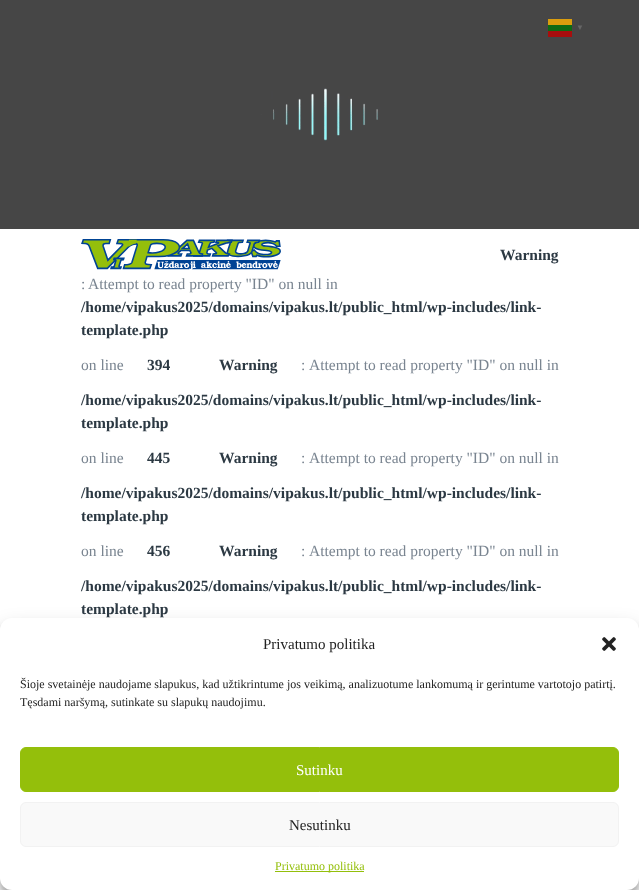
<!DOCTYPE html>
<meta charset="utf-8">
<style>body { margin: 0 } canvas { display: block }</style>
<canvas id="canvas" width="639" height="890"></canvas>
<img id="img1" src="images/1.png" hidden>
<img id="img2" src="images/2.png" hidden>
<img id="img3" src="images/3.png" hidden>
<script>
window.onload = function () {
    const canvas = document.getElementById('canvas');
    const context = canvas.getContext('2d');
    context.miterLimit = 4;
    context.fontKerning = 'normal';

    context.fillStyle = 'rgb(255, 255, 255)';
    context.fillRect(0, 0, 639, 890);
    context.drawImage(document.getElementById('img1'), 0, 0, 639, 229);
    context.fillStyle = 'rgb(14, 106, 20)';
    context.fillRect(548, 25, 24, 6);
    context.fillStyle = 'rgb(167, 14, 14)';
    context.fillRect(548, 31, 24, 6);
    context.fillStyle = 'rgb(218, 157, 14)';
    context.fillRect(548, 19, 24, 6);
    context.drawImage(document.getElementById('img2'), 81, 239, 200, 31);
    context.fillStyle = 'rgba(0, 0, 0, 0.23)';
    context.filter = 'blur(3px)';
    context.beginPath();
    context.roundRect(0, 624, 639, 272, 12);
    context.fill();
    context.filter = 'none';
    context.fillStyle = 'rgba(0, 0, 0, 0.19)';
    context.filter = 'blur(10px)';
    context.beginPath();
    context.roundRect(0, 628, 639, 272, 12);
    context.fill();
    context.filter = 'none';
    context.fillStyle = 'rgb(255, 255, 255)';
    context.beginPath();
    context.roundRect(0, 618, 639, 272, 12);
    context.fill();
    context.drawImage(document.getElementById('img3'), 602, 637, 14, 14);
    context.fillStyle = 'rgb(148, 191, 11)';
    context.beginPath();
    context.roundRect(20.5, 747.5, 598, 44, 5.5);
    context.fill();
    context.strokeStyle = 'rgb(148, 191, 11)';
    context.stroke();
    context.fillStyle = 'rgb(249, 249, 249)';
    context.beginPath();
    context.roundRect(20.5, 802.5, 598, 44, 5.5);
    context.fill();
    context.strokeStyle = 'rgb(242, 242, 242)';
    context.stroke();
    context.fillStyle = 'rgb(148, 191, 11)';
    context.fillRect(275, 871, 89, 1);
    context.font = 'bold 8px Liberation Serif';
    context.fillStyle = 'rgb(102, 102, 102)';
    context.fillText('▼', 576, 30);
    context.font = 'bold 15.5px Liberation Serif';
    context.fillStyle = 'rgb(44, 57, 67)';
    context.fillText('Warning', 500, 260);
    context.font = '15.5px Liberation Serif';
    context.fillStyle = 'rgb(121, 132, 144)';
    context.fillText(':', 81, 289);
    context.fillText('Attempt to read property "ID" on null in', 88, 289);
    context.font = 'bold 15.5px Liberation Serif';
    context.fillStyle = 'rgb(44, 57, 67)';
    context.fillText('/home/vipakus2025/domains/vipakus.lt/public_html/wp-includes/link-', 81, 312);
    context.fillText('template.php', 81, 335);
    context.font = '15.5px Liberation Serif';
    context.fillStyle = 'rgb(121, 132, 144)';
    context.fillText('on line', 81, 370);
    context.font = 'bold 15.5px Liberation Serif';
    context.fillStyle = 'rgb(44, 57, 67)';
    context.fillText('394', 147, 370);
    context.fillText('Warning', 219, 370);
    context.font = '15.5px Liberation Serif';
    context.fillStyle = 'rgb(121, 132, 144)';
    context.fillText(':', 301, 370);
    context.fillText('Attempt to read property "ID" on null in', 309, 370);
    context.font = 'bold 15.5px Liberation Serif';
    context.fillStyle = 'rgb(44, 57, 67)';
    context.fillText('/home/vipakus2025/domains/vipakus.lt/public_html/wp-includes/link-', 81, 405);
    context.fillText('template.php', 81, 428);
    context.font = '15.5px Liberation Serif';
    context.fillStyle = 'rgb(121, 132, 144)';
    context.fillText('on line', 81, 463);
    context.font = 'bold 15.5px Liberation Serif';
    context.fillStyle = 'rgb(44, 57, 67)';
    context.fillText('445', 147, 463);
    context.fillText('Warning', 219, 463);
    context.font = '15.5px Liberation Serif';
    context.fillStyle = 'rgb(121, 132, 144)';
    context.fillText(':', 301, 463);
    context.fillText('Attempt to read property "ID" on null in', 309, 463);
    context.font = 'bold 15.5px Liberation Serif';
    context.fillStyle = 'rgb(44, 57, 67)';
    context.fillText('/home/vipakus2025/domains/vipakus.lt/public_html/wp-includes/link-', 81, 498);
    context.fillText('template.php', 81, 521);
    context.font = '15.5px Liberation Serif';
    context.fillStyle = 'rgb(121, 132, 144)';
    context.fillText('on line', 81, 556);
    context.font = 'bold 15.5px Liberation Serif';
    context.fillStyle = 'rgb(44, 57, 67)';
    context.fillText('456', 147, 556);
    context.fillText('Warning', 219, 556);
    context.font = '15.5px Liberation Serif';
    context.fillStyle = 'rgb(121, 132, 144)';
    context.fillText(':', 301, 556);
    context.fillText('Attempt to read property "ID" on null in', 309, 556);
    context.font = 'bold 15.5px Liberation Serif';
    context.fillStyle = 'rgb(44, 57, 67)';
    context.fillText('/home/vipakus2025/domains/vipakus.lt/public_html/wp-includes/link-', 81, 591);
    context.fillText('template.php', 81, 614);
    context.font = '15px Liberation Serif';
    context.fillStyle = 'rgb(34, 34, 34)';
    context.fillText('Privatumo politika', 263, 649);
    context.font = '12px Liberation Serif';
    context.fillText('Šioje svetainėje naudojame slapukus, kad užtikrintume jos veikimą, analizuotume lankomumą ir gerintume vartotojo patirtį.', 20, 688);
    context.fillText('Tęsdami naršymą, sutinkate su slapukų naudojimu.', 20, 706);
    context.font = '15px Liberation Serif';
    context.fillStyle = 'rgb(255, 255, 255)';
    context.fillText('Sutinku', 296, 775);
    context.fillStyle = 'rgb(34, 34, 34)';
    context.fillText('Nesutinku', 289, 830);
    context.font = '12px Liberation Serif';
    context.fillStyle = 'rgb(148, 191, 11)';
    context.fillText('Privatumo politika', 275, 870);
};
</script>
